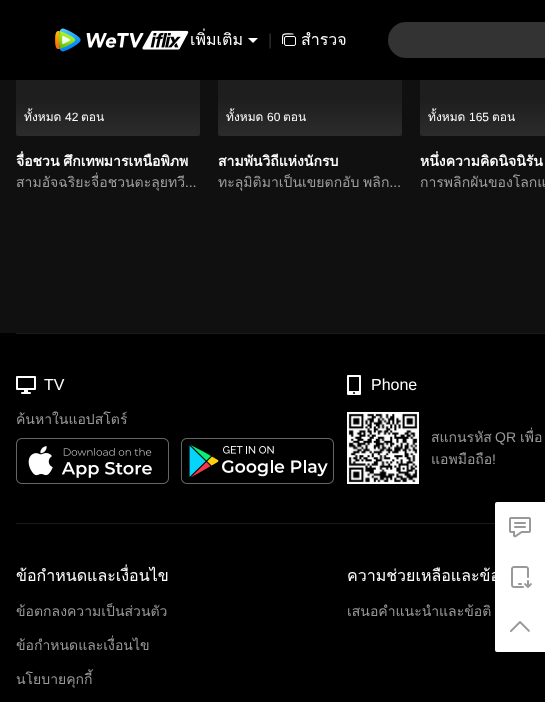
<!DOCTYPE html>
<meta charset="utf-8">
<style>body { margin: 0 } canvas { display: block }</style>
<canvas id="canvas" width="545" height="702"></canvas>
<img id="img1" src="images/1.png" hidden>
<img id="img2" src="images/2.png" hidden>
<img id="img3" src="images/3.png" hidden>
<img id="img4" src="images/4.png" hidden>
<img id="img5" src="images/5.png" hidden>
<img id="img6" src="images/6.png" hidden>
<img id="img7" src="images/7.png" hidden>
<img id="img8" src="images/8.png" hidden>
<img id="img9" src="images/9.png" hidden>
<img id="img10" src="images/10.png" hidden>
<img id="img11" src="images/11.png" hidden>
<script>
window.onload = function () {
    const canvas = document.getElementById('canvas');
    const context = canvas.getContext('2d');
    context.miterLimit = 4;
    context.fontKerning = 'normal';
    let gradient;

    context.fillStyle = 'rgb(0, 0, 0)';
    context.fillRect(0, 0, 545, 702);
    context.drawImage(document.getElementById('img1'), 55, 28, 134, 24);
    context.fillStyle = 'rgb(255, 255, 255)';
    context.beginPath();
    context.moveTo(248, 38);
    context.lineTo(258, 38);
    context.lineTo(253, 43);
    context.closePath();
    context.fill();
    context.beginPath();
    context.roundRect(284.5, 36.5, 11, 9, 1.5);
    context.strokeStyle = 'rgb(255, 255, 255)';
    context.stroke();
    context.save();
    context.beginPath();
    context.rect(282, 33, 14, 14);
    context.clip();
    context.beginPath();
    context.moveTo(293, 34);
    context.bezierCurveTo(281.5, 34, 282.5, 32, 282.5, 43.5);
    context.lineWidth = 1.2;
    context.lineCap = 'round';
    context.stroke();
    context.restore();
    context.fillStyle = 'rgb(51, 51, 51)';
    context.beginPath();
    context.roundRect(388, 22, 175, 36, 18);
    context.fill();
    context.fillStyle = 'rgb(16, 16, 16)';
    context.fillRect(0, 80, 545, 253);
    context.drawImage(document.getElementById('img2'), 16, 80, 184, 56);
    gradient = context.createLinearGradient(108, 136, 108, 98);
    gradient.addColorStop(0, 'rgb(44, 44, 44)');
    gradient.addColorStop(1, 'rgb(30, 30, 30)');
    context.fillStyle = gradient;
    context.beginPath();
    context.roundRect(16, 98, 184, 38, [0, 0, 4, 4]);
    context.fill();
    context.drawImage(document.getElementById('img2'), 218, 80, 184, 56);
    gradient = context.createLinearGradient(310, 136, 310, 98);
    gradient.addColorStop(0, 'rgb(44, 44, 44)');
    gradient.addColorStop(1, 'rgb(30, 30, 30)');
    context.fillStyle = gradient;
    context.beginPath();
    context.roundRect(218, 98, 184, 38, [0, 0, 4, 4]);
    context.fill();
    context.drawImage(document.getElementById('img3'), 420, 80, 125, 56);
    gradient = context.createLinearGradient(512, 136, 512, 98);
    gradient.addColorStop(0, 'rgb(44, 44, 44)');
    gradient.addColorStop(1, 'rgb(30, 30, 30)');
    context.fillStyle = gradient;
    context.beginPath();
    context.moveTo(420, 98);
    context.lineTo(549, 98);
    context.lineTo(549, 132);
    context.bezierCurveTo(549, 134, 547, 136, 545, 136);
    context.lineTo(424, 136);
    context.bezierCurveTo(422, 136, 420, 134, 420, 132);
    context.closePath();
    context.fill();
    context.fillStyle = 'rgb(26, 26, 26)';
    context.fillRect(16, 333, 529, 1);
    context.drawImage(document.getElementById('img4'), 16, 376, 20, 18);
    context.drawImage(document.getElementById('img5'), 16, 438, 153, 46);
    context.drawImage(document.getElementById('img6'), 181, 438, 153, 46);
    context.drawImage(document.getElementById('img7'), 347, 375, 14, 20);
    context.drawImage(document.getElementById('img8'), 347, 412, 72, 72);
    context.fillRect(16, 523, 479, 1);
    context.fillStyle = 'rgba(0, 0, 0, 0.18)';
    context.filter = 'blur(5px)';
    context.beginPath();
    context.roundRect(495, 504, 50, 150, 2);
    context.fill();
    context.filter = 'none';
    context.fillStyle = 'rgb(255, 255, 255)';
    context.beginPath();
    context.roundRect(495, 502, 50, 150, [2, 0, 0, 2]);
    context.fill();
    context.drawImage(document.getElementById('img9'), 509, 517, 22, 21);
    context.drawImage(document.getElementById('img10'), 511, 566, 21, 22);
    context.drawImage(document.getElementById('img11'), 510, 621, 20, 11);
    context.font = '16px Loma';
    context.fillText('เพิ่มเติม', 190, 45);
    context.font = '16px Liberation Sans';
    context.fillStyle = 'rgb(51, 51, 51)';
    context.fillText('|', 268, 45);
    context.font = '16px Loma';
    context.fillStyle = 'rgb(255, 255, 255)';
    context.fillText('สำรวจ', 301, 45);
    context.font = '12px Loma';
    context.fillText('ทั้งหมด', 24, 121);
    context.font = '12px Liberation Sans';
    context.fillText('42', 65, 121);
    context.font = '12px Loma';
    context.fillText('ตอน', 81, 121);
    context.save();
    context.beginPath();
    context.rect(16, 150, 184, 22);
    context.clip();
    context.wordSpacing = '-1px';
    context.font = 'bold 14px Loma';
    context.fillText('จื่อชวน ศึกเทพมารเหนือพิภพ', 16, 166);
    context.restore();
    context.font = '14px Loma';
    context.fillStyle = 'rgb(159, 159, 159)';
    context.fillText('สามอัจฉริยะจื่อชวนตะลุยทวี…', 16, 187);
    context.font = '12px Loma';
    context.fillStyle = 'rgb(255, 255, 255)';
    context.fillText('ทั้งหมด', 226, 121);
    context.font = '12px Liberation Sans';
    context.fillText('60', 267, 121);
    context.font = '12px Loma';
    context.fillText('ตอน', 283, 121);
    context.font = 'bold 14px Loma';
    context.fillText('สามพันวิถีแห่งนักรบ', 218, 166);
    context.wordSpacing = '-1px';
    context.font = '14px Loma';
    context.fillStyle = 'rgb(159, 159, 159)';
    context.fillText('ทะลุมิติมาเป็นเขยตกอับ พลิก…', 218, 187);
    context.wordSpacing = '0px';
    context.font = '12px Loma';
    context.fillStyle = 'rgb(255, 255, 255)';
    context.fillText('ทั้งหมด', 428, 121);
    context.font = '12px Liberation Sans';
    context.fillText('165', 469, 121);
    context.font = '12px Loma';
    context.fillText('ตอน', 492, 121);
    context.font = 'bold 14px Loma';
    context.fillText('หนึ่งความคิดนิจนิรัน', 420, 166);
    context.wordSpacing = '-1px';
    context.font = '14px Loma';
    context.fillStyle = 'rgb(159, 159, 159)';
    context.fillText('การพลิกผันของโลกแ', 420, 187);
    context.wordSpacing = '0px';
    context.font = '16px Liberation Sans';
    context.fillStyle = 'rgb(255, 255, 255)';
    context.fillText('TV', 44, 390);
    context.save();
    context.beginPath();
    context.rect(16, 333, 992, 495);
    context.clip();
    context.font = '14px Loma';
    context.fillStyle = 'rgb(153, 153, 153)';
    context.fillText('ค้นหาในแอปสโตร์', 16, 424);
    context.restore();
    context.fillText('Phone', 371, 390);
    context.font = '14px Loma';
    context.fillStyle = 'rgb(153, 153, 153)';
    context.fillText('สแกนรหัส', 431, 442);
    context.font = '14px Liberation Sans';
    context.fillText('QR', 495, 442);
    context.font = '14px Loma';
    context.fillText('เพื่อ', 520, 442);
    context.fillText('แอพมือถือ', 431, 464);
    context.font = '14px Liberation Sans';
    context.fillText('!', 492, 464);
    context.save();
    context.beginPath();
    context.rect(16, 564, 331, 24);
    context.clip();
    context.font = '16px Loma';
    context.fillStyle = 'rgb(255, 255, 255)';
    context.fillText('ข้อกำหนดและเงื่อนไข', 16, 581);
    context.restore();
    context.save();
    context.beginPath();
    context.rect(16, 333, 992, 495);
    context.clip();
    context.font = '14px Loma';
    context.fillText('ข้อตกลงความเป็นส่วนตัว', 16, 616);
    context.fillText('ข้อกำหนดและเงื่อนไข', 16, 650);
    context.restore();
    context.font = '14px Loma';
    context.fillText('นโยบายคุกกี้', 16, 684);
    context.font = '16px Loma';
    context.fillStyle = 'rgb(255, 255, 255)';
    context.fillText('ความช่วยเหลือและข้อ', 347, 581);
    context.font = '14px Loma';
    context.fillStyle = 'rgb(153, 153, 153)';
    context.fillText('เสนอคำแนะนำและข้อติ', 347, 616);
};
</script>
